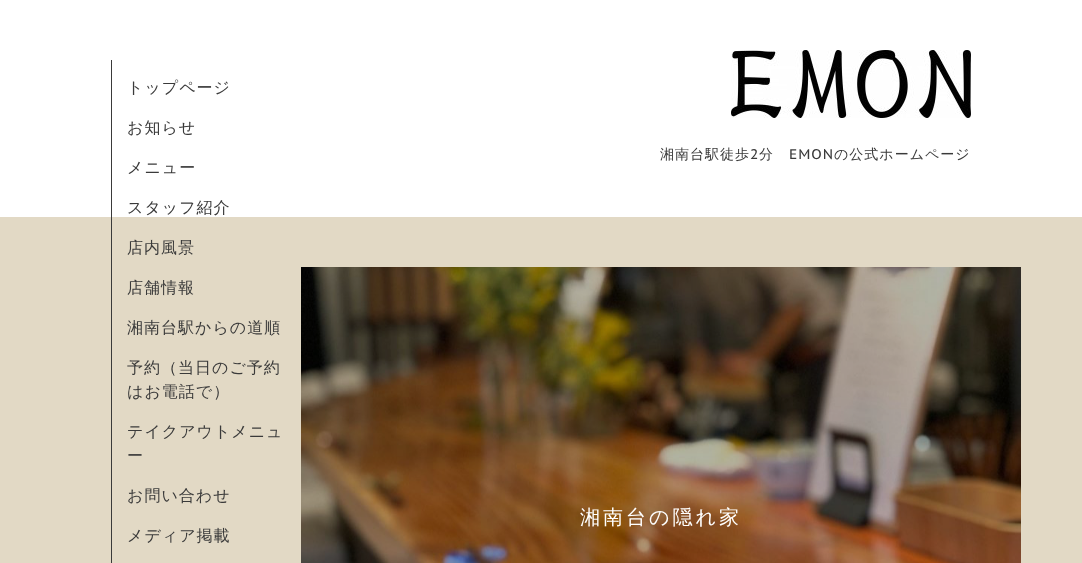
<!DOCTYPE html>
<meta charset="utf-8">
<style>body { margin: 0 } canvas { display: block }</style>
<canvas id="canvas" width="1082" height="563"></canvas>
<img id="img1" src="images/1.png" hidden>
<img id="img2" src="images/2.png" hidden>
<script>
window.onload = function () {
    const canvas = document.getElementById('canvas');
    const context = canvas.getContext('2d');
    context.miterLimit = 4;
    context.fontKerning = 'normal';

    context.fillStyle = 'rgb(255, 255, 255)';
    context.fillRect(0, 0, 1082, 563);
    context.fillStyle = 'rgb(226, 217, 197)';
    context.fillRect(0, 217, 1082, 346);
    context.fillStyle = 'rgb(58, 58, 58)';
    context.fillRect(111, 60, 1, 503);
    context.drawImage(document.getElementById('img1'), 731, 50, 240, 68);
    context.drawImage(document.getElementById('img2'), 301, 267, 720, 296);
    context.letterSpacing = '1px';
    context.font = '500 16px WenQuanYi Zen Hei';
    context.fillText('トップページ', 127, 93);
    context.fillText('お知らせ', 127, 133);
    context.fillText('メニュー', 127, 173);
    context.fillText('スタッフ紹介', 127, 213);
    context.fillText('店内風景', 127, 253);
    context.fillText('店舗情報', 127, 293);
    context.fillText('湘南台駅からの道順', 127, 333);
    context.fillText('予約（当日のご予約', 127, 373);
    context.fillText('はお電話で）', 127, 397);
    context.fillText('テイクアウトメニュ', 127, 437);
    context.fillText('ー', 127, 461);
    context.fillText('お問い合わせ', 127, 501);
    context.fillText('メディア掲載', 127, 541);
    context.font = '500 14px WenQuanYi Zen Hei';
    context.fillText('湘南台駅徒歩', 660, 159);
    context.font = '14px PT Sans Caption';
    context.fillText('2', 750, 159);
    context.font = '500 14px WenQuanYi Zen Hei';
    context.fillText('分', 759, 159);
    context.font = '14px PT Sans Caption';
    context.fillText('EMON', 789, 159);
    context.font = '500 14px WenQuanYi Zen Hei';
    context.fillText('の公式ホームページ', 834, 159);
    context.letterSpacing = '3px';
    context.font = '500 20px WenQuanYi Zen Hei';
    context.fillStyle = 'rgb(255, 255, 255)';
    context.fillText('湘南台の隠れ家', 580, 524);
};
</script>
